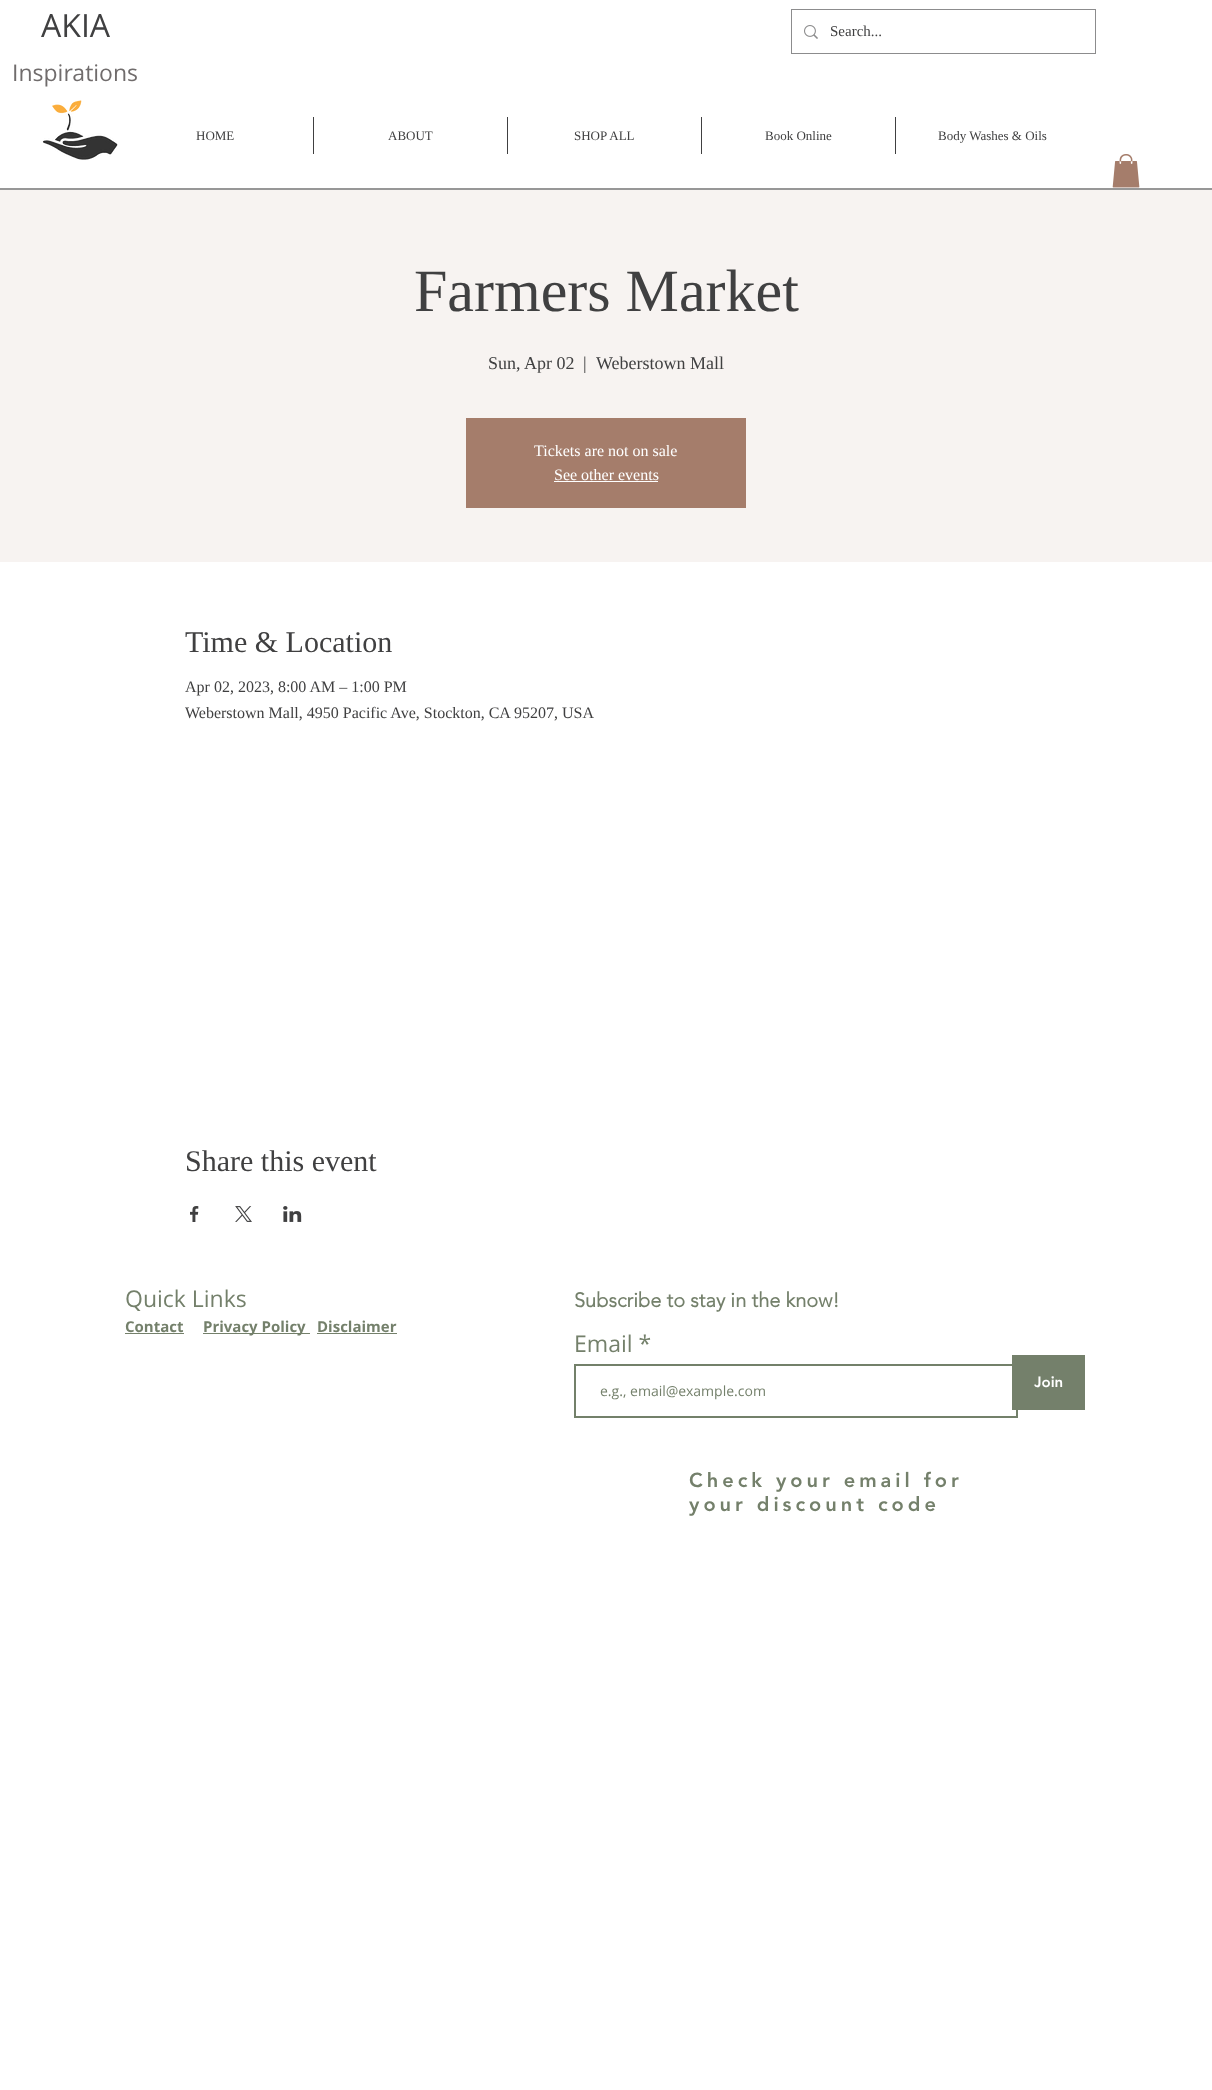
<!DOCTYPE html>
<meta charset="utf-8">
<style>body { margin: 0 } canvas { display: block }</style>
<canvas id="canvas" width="1212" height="2090"></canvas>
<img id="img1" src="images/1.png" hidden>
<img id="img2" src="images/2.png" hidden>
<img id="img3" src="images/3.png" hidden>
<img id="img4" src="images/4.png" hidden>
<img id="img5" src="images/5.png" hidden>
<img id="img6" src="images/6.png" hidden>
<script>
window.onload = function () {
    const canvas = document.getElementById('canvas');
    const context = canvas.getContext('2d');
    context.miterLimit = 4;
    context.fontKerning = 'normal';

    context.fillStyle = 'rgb(255, 255, 255)';
    context.fillRect(0, 0, 1212, 2090);
    context.strokeStyle = 'rgb(140, 140, 141)';
    context.strokeRect(791.5, 9.5, 304, 44);
    context.drawImage(document.getElementById('img1'), 804, 25, 14, 14);
    context.drawImage(document.getElementById('img2'), 42, 100, 76, 60);
    context.fillStyle = 'rgb(64, 64, 65)';
    context.fillRect(313, 117, 1, 37);
    context.fillRect(507, 117, 1, 37);
    context.fillRect(701, 117, 1, 37);
    context.fillRect(895, 117, 1, 37);
    context.drawImage(document.getElementById('img3'), 1112, 154, 28, 34);
    context.fillStyle = 'rgb(151, 151, 151)';
    context.fillRect(0, 188, 1212, 2);
    context.fillStyle = 'rgb(247, 243, 241)';
    context.fillRect(0, 190, 1212, 372);
    context.fillStyle = 'rgb(165, 125, 107)';
    context.fillRect(466, 418, 280, 90);
    context.fillStyle = 'rgb(255, 255, 255)';
    context.fillRect(554, 481, 104, 1);
    context.drawImage(document.getElementById('img4'), 190, 1206, 9, 16);
    context.drawImage(document.getElementById('img5'), 235, 1206, 17, 16);
    context.drawImage(document.getElementById('img6'), 283, 1206, 19, 16);
    context.fillStyle = 'rgb(116, 128, 107)';
    context.fillRect(125, 1333, 59, 1);
    context.fillRect(203, 1333, 107, 1);
    context.fillRect(317, 1333, 80, 1);
    context.strokeStyle = 'rgb(115, 128, 106)';
    context.lineWidth = 2;
    context.strokeRect(575, 1365, 442, 52);
    context.fillRect(1012, 1355, 73, 55);
    context.font = '32px Open Sans';
    context.fillStyle = 'rgb(64, 64, 65)';
    context.fillText('AKIA', 41, 37);
    context.font = '15px Liberation Serif';
    context.fillText('Search...', 830, 36);
    context.font = '23px Open Sans';
    context.fillStyle = 'rgb(112, 108, 108)';
    context.fillText('Inspirations', 12, 81);
    context.font = '13px Liberation Serif';
    context.fillStyle = 'rgb(64, 64, 65)';
    context.fillText('HOME', 196, 140);
    context.fillText('ABOUT', 388, 140);
    context.fillText('SHOP ALL', 574, 140);
    context.fillText('Book Online', 765, 140);
    context.fillText('Body Washes & Oils', 938, 140);
    context.font = '60px Liberation Serif';
    context.fillText('Farmers Market', 414, 311);
    context.font = '18px Liberation Serif';
    context.fillText('Sun, Apr 02', 488, 369);
    context.fillText('|', 583, 369);
    context.fillText('Weberstown Mall', 596, 369);
    context.font = '16px Liberation Serif';
    context.fillStyle = 'rgb(255, 255, 255)';
    context.fillText('Tickets are not on sale', 534, 456);
    context.fillText('See other events', 554, 480);
    context.font = '30px Liberation Serif';
    context.fillStyle = 'rgb(64, 64, 65)';
    context.fillText('Time & Location', 185, 652);
    context.font = '16px Liberation Serif';
    context.fillText('Apr 02, 2023, 8:00 AM – 1:00 PM', 185, 692);
    context.fillText('Weberstown Mall, 4950 Pacific Ave, Stockton, CA 95207, USA', 185, 718);
    context.font = '30px Liberation Serif';
    context.fillText('Share this event', 185, 1171);
    context.font = '23px Open Sans';
    context.fillStyle = 'rgb(116, 128, 107)';
    context.fillText('Quick Links', 125, 1307);
    context.font = 'bold 15px Open Sans';
    context.fillText('Contact', 125, 1332);
    context.fillText('Privacy Policy', 203, 1332);
    context.fillText('Disclaimer', 317, 1332);
    context.font = 'bold 20px "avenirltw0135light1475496"';
    context.fillText('Subscribe to stay in the know!', 574, 1307);
    context.font = '23px Open Sans';
    context.fillText('Email *', 574, 1352);
    context.font = '14px Open Sans';
    context.fillText('e.g., email@example.com', 600, 1396);
    context.font = '900 15px "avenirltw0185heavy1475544"';
    context.fillStyle = 'rgb(255, 255, 255)';
    context.fillText('Join', 1034, 1387);
    context.letterSpacing = '4px';
    context.font = '900 20px "avenirltw0185heavy1475544"';
    context.fillStyle = 'rgb(116, 128, 107)';
    context.fillText('Check your email for', 689, 1487);
    context.fillText('your discount code', 689, 1511);
};
</script>
